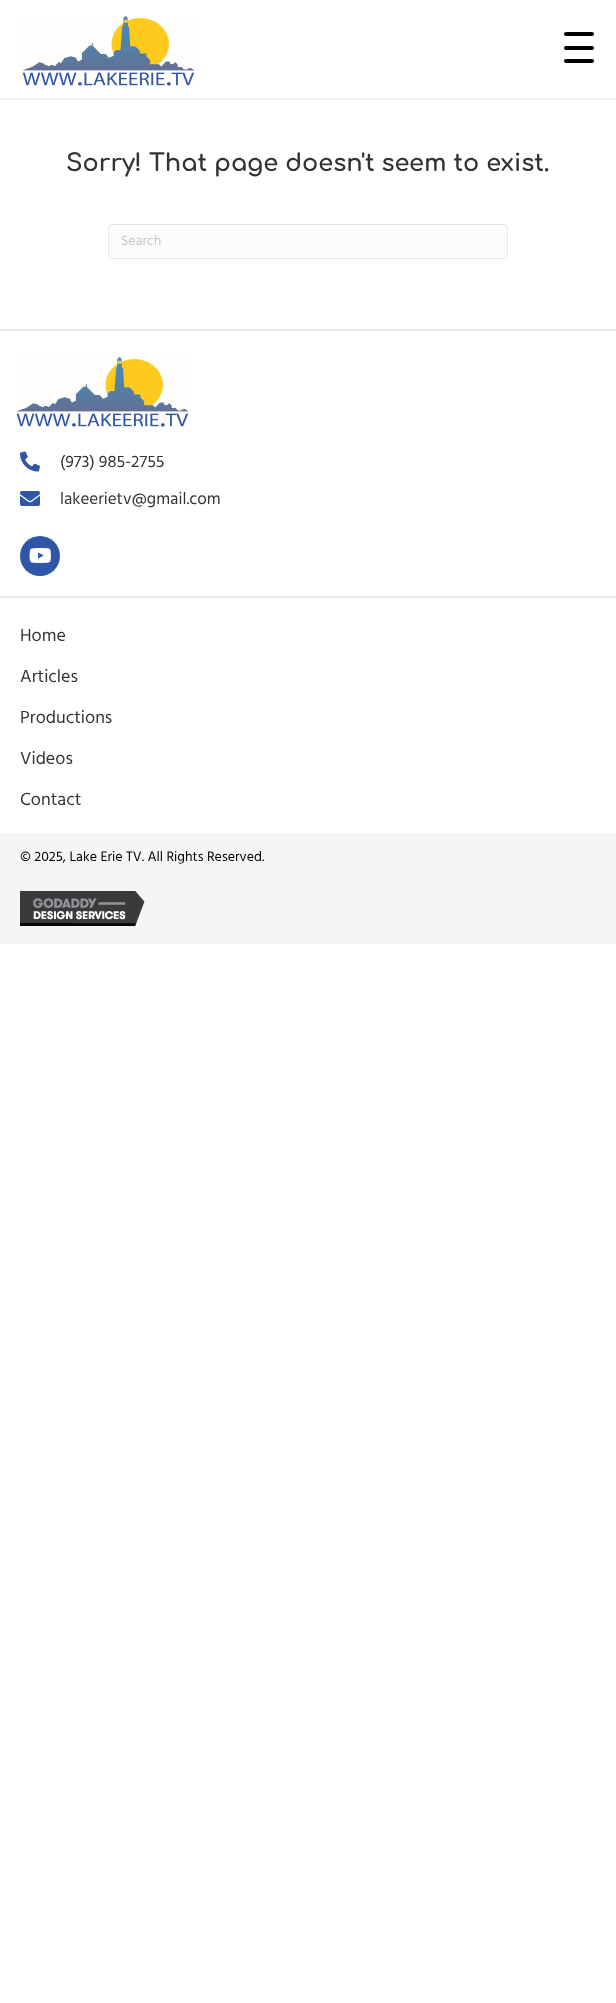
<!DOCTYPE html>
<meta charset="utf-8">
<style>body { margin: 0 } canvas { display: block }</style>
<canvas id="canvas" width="616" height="2003"></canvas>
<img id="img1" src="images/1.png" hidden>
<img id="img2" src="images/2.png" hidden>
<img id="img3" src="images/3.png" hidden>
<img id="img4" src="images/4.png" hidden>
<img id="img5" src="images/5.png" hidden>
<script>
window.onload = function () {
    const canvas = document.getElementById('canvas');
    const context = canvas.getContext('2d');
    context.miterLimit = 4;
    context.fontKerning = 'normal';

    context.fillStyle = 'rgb(255, 255, 255)';
    context.fillRect(0, 0, 616, 2003);
    context.fillStyle = 'rgb(242, 242, 242)';
    context.fillRect(0, 98, 616, 2);
    context.drawImage(document.getElementById('img1'), 22, 16, 174, 70);
    context.fillStyle = 'rgb(0, 0, 0)';
    context.beginPath();
    context.roundRect(564, 46, 30, 4, 2);
    context.fill();
    context.beginPath();
    context.roundRect(564, 32, 30, 4, 2);
    context.fill();
    context.beginPath();
    context.roundRect(564, 59, 30, 4, 2);
    context.fill();
    context.fillStyle = 'rgb(252, 252, 252)';
    context.beginPath();
    context.roundRect(108.5, 224.5, 399, 34, 3.5);
    context.fill();
    context.strokeStyle = 'rgb(230, 230, 230)';
    context.stroke();
    context.fillStyle = 'rgb(235, 235, 235)';
    context.fillRect(0, 329, 616, 2);
    context.drawImage(document.getElementById('img1'), 16, 357, 174, 70);
    context.drawImage(document.getElementById('img2'), 20, 451, 20, 21);
    context.drawImage(document.getElementById('img3'), 20, 491, 20, 15);
    context.fillRect(0, 596, 616, 2);
    context.fillStyle = 'rgb(48, 86, 168)';
    context.beginPath();
    context.arc(40, 556, 20, 0, 2 * Math.PI);
    context.fill();
    context.drawImage(document.getElementById('img4'), 29, 548, 22, 15);
    context.fillStyle = 'rgb(245, 245, 245)';
    context.fillRect(0, 833, 616, 111);
    context.drawImage(document.getElementById('img5'), 20, 891, 125, 35);
    context.font = 'bold 24px Comfortaa';
    context.fillStyle = 'rgb(51, 51, 51)';
    context.fillText('Sorry! That page doesn\'t seem to exist.', 66, 171);
    context.font = '14px Hind';
    context.fillStyle = 'rgb(198, 198, 198)';
    context.fillText('Search', 121, 245);
    context.font = '17px Hind';
    context.fillStyle = 'rgb(51, 51, 51)';
    context.fillText('(973) 985-2755', 60, 467);
    context.fillText('lakeerietv@gmail.com', 60, 504);
    context.font = '18px Hind';
    context.fillText('Home', 20, 641);
    context.fillText('Articles', 20, 682);
    context.fillText('Productions', 20, 723);
    context.fillText('Videos', 20, 764);
    context.fillText('Contact', 20, 805);
    context.font = '14px Hind';
    context.fillStyle = 'rgb(0, 0, 0)';
    context.fillText('© 2025, Lake Erie TV. All Rights Reserved.', 20, 861);
};
</script>
